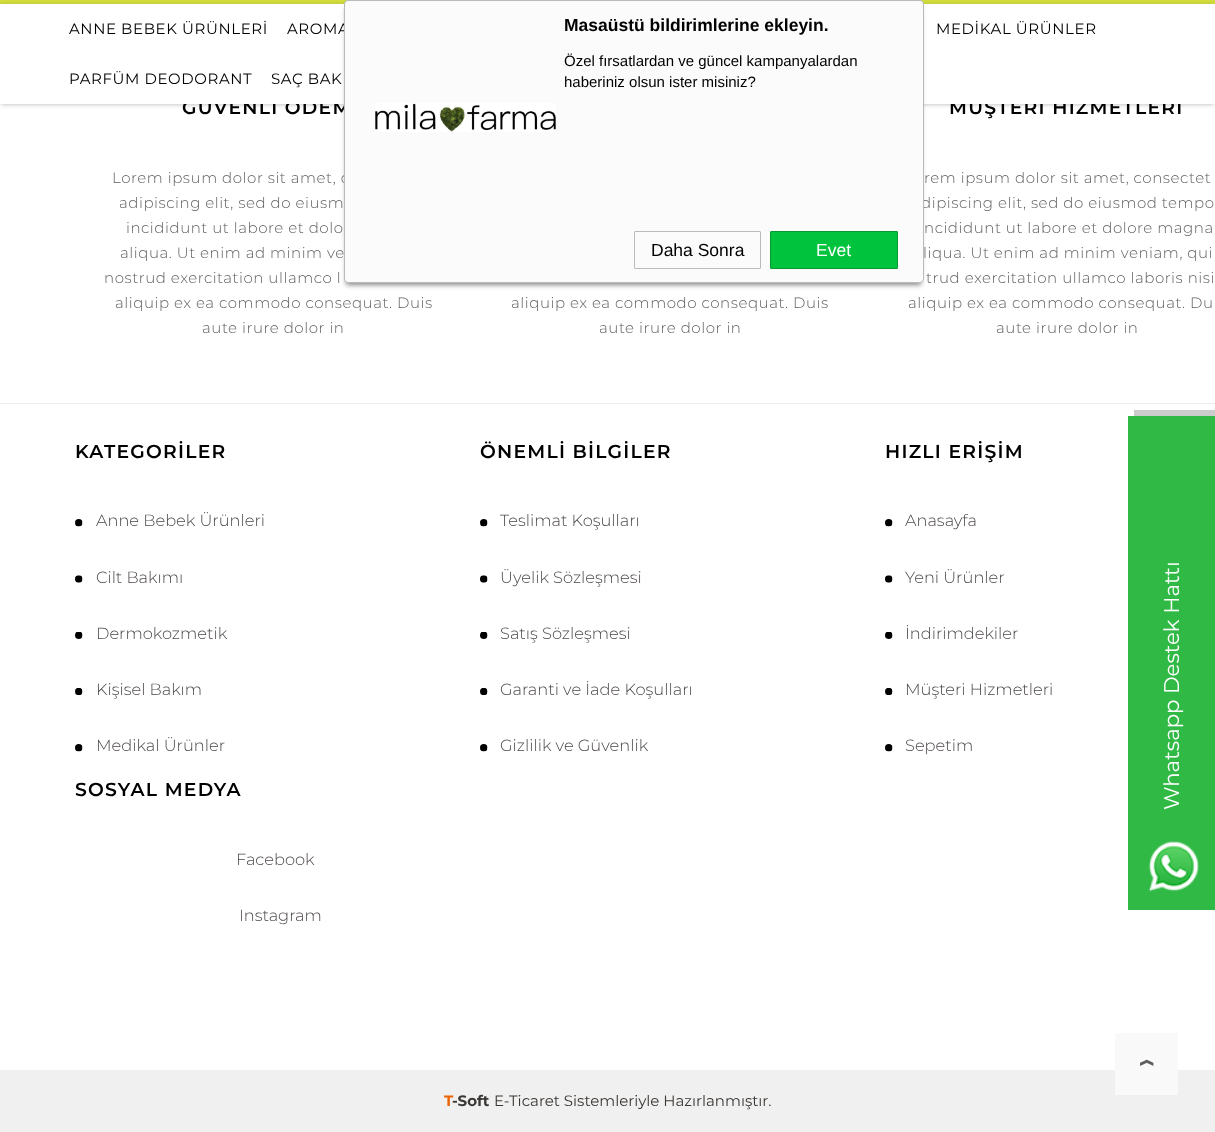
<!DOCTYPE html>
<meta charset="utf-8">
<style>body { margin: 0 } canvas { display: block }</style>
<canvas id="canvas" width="1215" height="1132"></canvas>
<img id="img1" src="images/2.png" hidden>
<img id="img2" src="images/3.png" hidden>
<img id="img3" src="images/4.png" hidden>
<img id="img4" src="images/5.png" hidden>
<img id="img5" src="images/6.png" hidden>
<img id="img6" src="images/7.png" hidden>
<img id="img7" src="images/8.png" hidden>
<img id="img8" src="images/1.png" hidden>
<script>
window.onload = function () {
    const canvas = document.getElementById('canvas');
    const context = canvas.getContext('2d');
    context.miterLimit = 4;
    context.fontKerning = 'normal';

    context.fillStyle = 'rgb(255, 255, 255)';
    context.fillRect(0, 0, 1215, 1132);
    context.fillStyle = 'rgb(209, 220, 62)';
    context.fillRect(0, 0, 1215, 4);
    context.fillStyle = 'rgba(0, 0, 0, 0.3)';
    context.filter = 'blur(2.5px)';
    context.beginPath();
    context.rect(1, 6, 1213, 98);
    context.fill();
    context.filter = 'none';
    context.fillStyle = 'rgb(240, 240, 240)';
    context.fillRect(0, 1070, 1215, 62);
    context.fillStyle = 'rgb(249, 249, 249)';
    context.fillRect(1115, 1033, 63, 62);
    context.drawImage(document.getElementById('img1'), 1140, 1059, 14, 7);
    context.fillStyle = 'rgb(237, 237, 237)';
    context.fillRect(0, 403, 1215, 1);
    context.drawImage(document.getElementById('img2'), 75, 519, 8, 8);
    context.drawImage(document.getElementById('img3'), 75, 575, 8, 8);
    context.drawImage(document.getElementById('img4'), 75, 632, 8, 7);
    context.drawImage(document.getElementById('img5'), 75, 688, 8, 7);
    context.drawImage(document.getElementById('img6'), 75, 744, 8, 8);
    context.drawImage(document.getElementById('img2'), 480, 519, 8, 8);
    context.drawImage(document.getElementById('img3'), 480, 575, 8, 8);
    context.drawImage(document.getElementById('img4'), 480, 632, 8, 7);
    context.drawImage(document.getElementById('img5'), 480, 688, 8, 7);
    context.drawImage(document.getElementById('img6'), 480, 744, 8, 8);
    context.drawImage(document.getElementById('img2'), 885, 519, 8, 8);
    context.drawImage(document.getElementById('img3'), 885, 575, 8, 8);
    context.drawImage(document.getElementById('img4'), 885, 632, 8, 7);
    context.drawImage(document.getElementById('img5'), 885, 688, 8, 7);
    context.drawImage(document.getElementById('img6'), 885, 744, 8, 8);
    context.fillStyle = 'rgb(204, 204, 204)';
    context.beginPath();
    context.moveTo(1134, 410);
    context.lineTo(1134, 416);
    context.lineTo(1215, 416);
    context.lineTo(1215, 904);
    context.lineTo(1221, 904);
    context.lineTo(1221, 410);
    context.closePath();
    context.fill();
    context.fillStyle = 'rgb(48, 186, 69)';
    context.fillRect(1128, 416, 87, 494);
    context.drawImage(document.getElementById('img7'), 1148, 841, 51, 51);
    context.letterSpacing = '1.25px';
    context.font = '600 18.75px Montserrat';
    context.fillStyle = 'rgb(0, 0, 0)';
    context.fillText('GÜVENLİ ÖDEM', 182, 114);
    context.letterSpacing = '0.55px';
    context.font = '300 15px Montserrat';
    context.fillStyle = 'rgb(96, 96, 96)';
    context.fillText('Lorem ipsum dolor sit amet, c', 112, 183);
    context.fillText('adipiscing elit, sed do eiusm', 119, 208);
    context.fillText('incididunt ut labore et dolo', 126, 233);
    context.fillText('aliqua. Ut enim ad minim ve', 120, 258);
    context.fillText('nostrud exercitation ullamco l', 104, 283);
    context.fillText('aliquip ex ea commodo consequat. Duis', 115, 308);
    context.fillText('aute irure dolor in', 202, 333);
    context.fillText('aliquip ex ea commodo consequat. Duis', 511, 308);
    context.fillText('aute irure dolor in', 599, 333);
    context.letterSpacing = '1.25px';
    context.font = '600 18.75px Montserrat';
    context.fillStyle = 'rgb(0, 0, 0)';
    context.fillText('MÜŞTERİ HİZMETLERİ', 949, 114);
    context.fillStyle = 'rgb(255, 255, 255)';
    context.fillRect(0, 4, 1215, 100);
    context.fillStyle = 'rgb(136, 136, 136)';
    context.filter = 'blur(2.5px)';
    context.beginPath();
    context.roundRect(346, 8, 575, 277, 1);
    context.fill();
    context.filter = 'none';
    context.letterSpacing = '0.6px';
    context.font = '15px Montserrat';
    context.fillStyle = 'rgb(0, 0, 0)';
    context.fillText('SAÇ BAK', 271, 84);
    context.fillText('PARFÜM DEODORANT', 69, 84);
    context.fillText('MEDİKAL ÜRÜNLER', 936, 34);
    context.fillText('AROMA', 287, 34);
    context.fillText('ANNE BEBEK ÜRÜNLERİ', 69, 34);
    context.letterSpacing = '0.55px';
    context.font = '300 15px Montserrat';
    context.fillStyle = 'rgb(96, 96, 96)';
    context.fillText('rem ipsum dolor sit amet, consectet', 924, 183);
    context.fillText('dipiscing elit, sed do eiusmod tempo', 921, 208);
    context.fillStyle = 'rgb(251, 251, 251)';
    context.beginPath();
    context.roundRect(344.5, 0.5, 579, 282, 3.5);
    context.fill();
    context.strokeStyle = 'rgb(186, 186, 186)';
    context.stroke();
    context.letterSpacing = '0px';
    context.font = '15px Liberation Sans';
    context.fillStyle = 'rgb(0, 0, 0)';
    context.fillText('haberiniz olsun ister misiniz?', 564, 87);
    context.fillText('Özel fırsatlardan ve güncel kampanyalardan', 564, 66);
    context.font = 'bold 17.5px Liberation Sans';
    context.fillText('Masaüstü bildirimlerine ekleyin.', 564, 31);
    context.fillStyle = 'rgb(0, 195, 61)';
    context.beginPath();
    context.roundRect(770.5, 231.5, 127, 37, 0.5);
    context.fill();
    context.strokeStyle = 'rgb(5, 152, 51)';
    context.stroke();
    context.font = '17.5px Liberation Sans';
    context.fillStyle = 'rgb(255, 255, 255)';
    context.fillText('Evet', 816, 256);
    context.beginPath();
    context.roundRect(634.5, 231.5, 126, 37, 0.5);
    context.strokeStyle = 'rgb(186, 186, 186)';
    context.stroke();
    context.fillStyle = 'rgb(0, 0, 0)';
    context.fillText('Daha Sonra', 651, 256);
    context.drawImage(document.getElementById('img8'), 375, 103, 181, 29);
    context.letterSpacing = '0.55px';
    context.font = '300 15px Montserrat';
    context.fillStyle = 'rgb(96, 96, 96)';
    context.fillText('ncididunt ut labore et dolore magna', 924, 233);
    context.fillText('liqua. Ut enim ad minim veniam, qui', 923, 258);
    context.fillText('trud exercitation ullamco laboris nisi', 926, 283);
    context.fillText('aliquip ex ea commodo consequat. Du', 908, 308);
    context.fillText('aute irure dolor in', 996, 333);
    context.letterSpacing = '1.25px';
    context.font = '600 18.75px Montserrat';
    context.fillStyle = 'rgb(0, 0, 0)';
    context.fillText('KATEGORİLER', 75, 458);
    context.letterSpacing = '0px';
    context.font = '300 16.25px Montserrat';
    context.fillStyle = 'rgb(78, 73, 73)';
    context.fillText('Anne Bebek Ürünleri', 96, 526);
    context.fillText('Cilt Bakımı', 96, 583);
    context.fillText('Dermokozmetik', 96, 639);
    context.fillText('Kişisel Bakım', 96, 695);
    context.fillText('Medikal Ürünler', 96, 751);
    context.letterSpacing = '1.25px';
    context.font = '600 18.75px Montserrat';
    context.fillStyle = 'rgb(0, 0, 0)';
    context.fillText('ÖNEMLİ BİLGİLER', 480, 458);
    context.letterSpacing = '0px';
    context.font = '300 16.25px Montserrat';
    context.fillStyle = 'rgb(78, 73, 73)';
    context.fillText('Teslimat Koşulları', 500, 526);
    context.fillText('Üyelik Sözleşmesi', 500, 583);
    context.fillText('Satış Sözleşmesi', 500, 639);
    context.fillText('Garanti ve İade Koşulları', 500, 695);
    context.fillText('Gizlilik ve Güvenlik', 500, 751);
    context.letterSpacing = '1.25px';
    context.font = '600 18.75px Montserrat';
    context.fillStyle = 'rgb(0, 0, 0)';
    context.fillText('HIZLI ERİŞİM', 885, 458);
    context.letterSpacing = '0px';
    context.font = '300 16.25px Montserrat';
    context.fillStyle = 'rgb(78, 73, 73)';
    context.fillText('Anasayfa', 905, 526);
    context.fillText('Yeni Ürünler', 905, 583);
    context.fillText('İndirimdekiler', 905, 639);
    context.fillText('Müşteri Hizmetleri', 905, 695);
    context.fillText('Sepetim', 905, 751);
    context.letterSpacing = '1.25px';
    context.font = '600 18.75px Montserrat';
    context.fillStyle = 'rgb(0, 0, 0)';
    context.fillText('SOSYAL MEDYA', 75, 796);
    context.letterSpacing = '0px';
    context.font = '300 16.25px Montserrat';
    context.fillStyle = 'rgb(78, 73, 73)';
    context.fillText('Facebook', 236, 865);
    context.fillText('Instagram', 239, 921);
    context.font = 'bold 15px Montserrat';
    context.fillStyle = 'rgb(236, 100, 8)';
    context.fillText('T', 444, 1106);
    context.fillStyle = 'rgb(59, 55, 52)';
    context.fillText('-Soft', 452, 1106);
    context.font = '15px Montserrat';
    context.fillText('E-Ticaret Sistemleriyle Hazırlanmıştır.', 494, 1106);
    context.font = '21.25px Montserrat';
    context.fillStyle = 'rgb(255, 255, 255)';
    context.save();
    context.translate(1179, 810);
    context.rotate(-90 * Math.PI / 180);
    context.fillText('Whatsapp Destek Hattı', 0, 0);
    context.restore();
};
</script>
